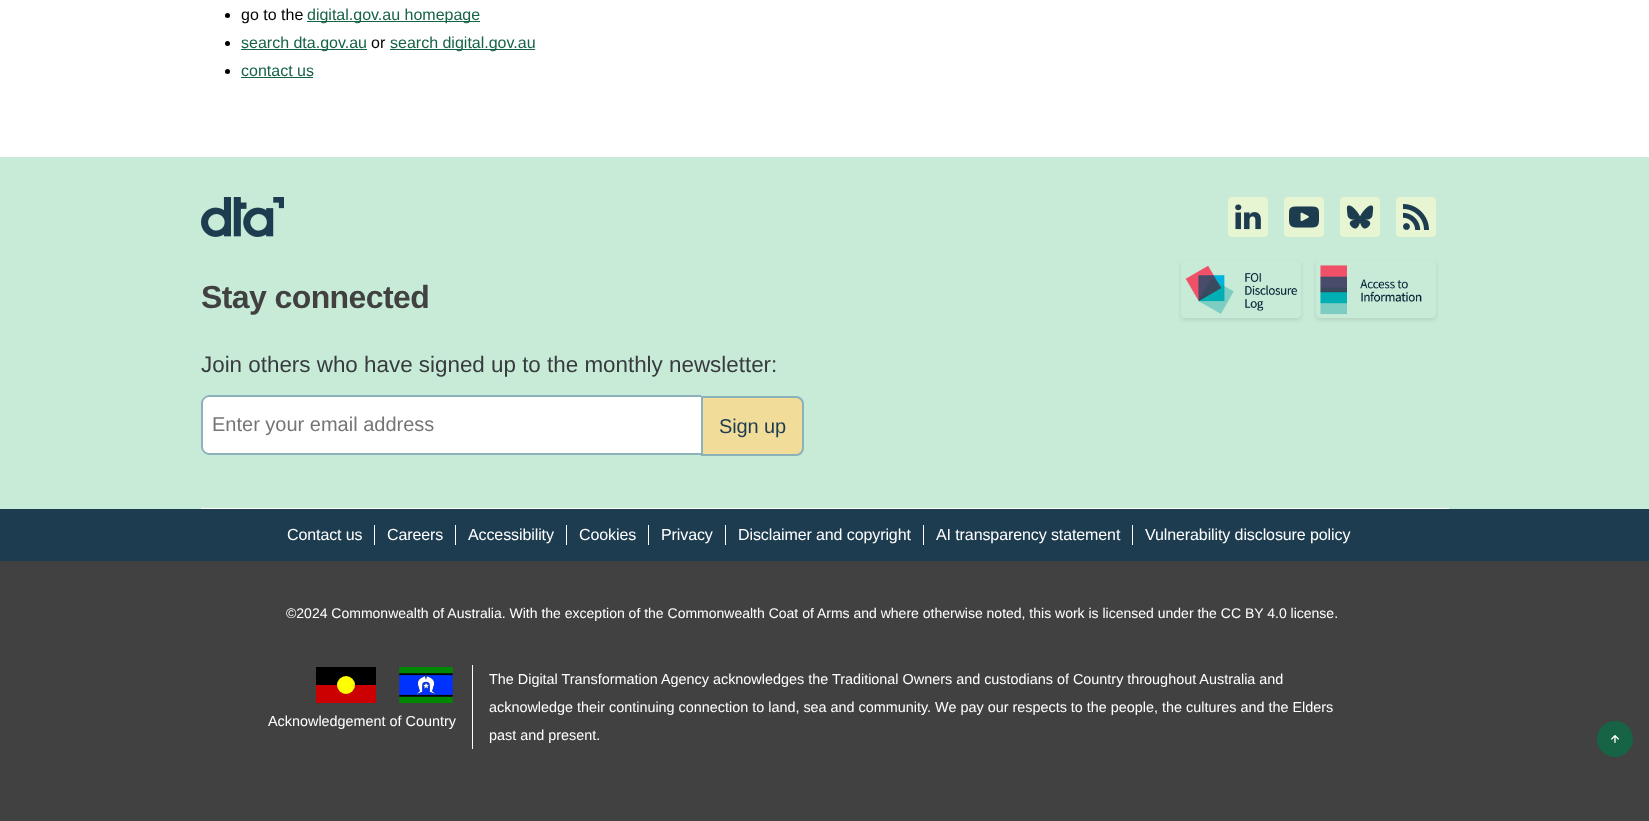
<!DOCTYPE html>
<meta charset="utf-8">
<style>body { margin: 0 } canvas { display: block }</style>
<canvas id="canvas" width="1649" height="821"></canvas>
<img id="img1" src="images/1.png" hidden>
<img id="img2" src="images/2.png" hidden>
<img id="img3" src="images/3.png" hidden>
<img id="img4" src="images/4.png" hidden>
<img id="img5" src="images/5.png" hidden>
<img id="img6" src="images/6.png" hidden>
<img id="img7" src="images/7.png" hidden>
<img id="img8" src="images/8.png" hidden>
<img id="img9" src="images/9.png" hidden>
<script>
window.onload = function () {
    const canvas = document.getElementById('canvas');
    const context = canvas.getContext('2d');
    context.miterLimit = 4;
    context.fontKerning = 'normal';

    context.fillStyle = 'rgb(255, 255, 255)';
    context.fillRect(0, 0, 1649, 821);
    context.fillStyle = 'rgb(0, 0, 0)';
    context.beginPath();
    context.arc(227.5, 15.5, 2.5, 0, 2 * Math.PI);
    context.fill();
    context.fillStyle = 'rgb(23, 99, 70)';
    context.fillRect(307, 21, 173, 1);
    context.fillStyle = 'rgb(0, 0, 0)';
    context.beginPath();
    context.arc(227.5, 43.5, 2.5, 0, 2 * Math.PI);
    context.fill();
    context.fillStyle = 'rgb(23, 99, 70)';
    context.fillRect(241, 49, 126, 1);
    context.fillRect(390, 49, 145, 1);
    context.fillStyle = 'rgb(0, 0, 0)';
    context.beginPath();
    context.arc(227.5, 71.5, 2.5, 0, 2 * Math.PI);
    context.fill();
    context.fillStyle = 'rgb(23, 99, 70)';
    context.fillRect(241, 77, 72, 1);
    context.fillStyle = 'rgb(200, 235, 215)';
    context.fillRect(0, 157, 1649, 352);
    context.fillStyle = 'rgb(255, 255, 255)';
    context.fillRect(201, 508, 1248, 1);
    context.fillStyle = 'rgb(231, 245, 211)';
    context.beginPath();
    context.roundRect(1228, 197, 40, 40, 4);
    context.fill();
    context.drawImage(document.getElementById('img1'), 1235, 204, 26, 26);
    context.beginPath();
    context.roundRect(1284, 197, 40, 40, 4);
    context.fill();
    context.drawImage(document.getElementById('img2'), 1289, 206, 30, 22);
    context.beginPath();
    context.roundRect(1340, 197, 40, 40, 4);
    context.fill();
    context.drawImage(document.getElementById('img3'), 1346, 205, 28, 24);
    context.beginPath();
    context.roundRect(1396, 197, 40, 40, 4);
    context.fill();
    context.drawImage(document.getElementById('img4'), 1403, 204, 26, 26);
    context.save();
    context.beginPath();
    context.moveTo(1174, 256);
    context.lineTo(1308, 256);
    context.lineTo(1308, 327);
    context.lineTo(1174, 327);
    context.closePath();
    context.moveTo(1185, 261);
    context.lineTo(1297, 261);
    context.bezierCurveTo(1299, 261, 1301, 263, 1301, 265);
    context.lineTo(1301, 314);
    context.bezierCurveTo(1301, 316, 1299, 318, 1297, 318);
    context.lineTo(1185, 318);
    context.bezierCurveTo(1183, 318, 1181, 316, 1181, 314);
    context.lineTo(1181, 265);
    context.bezierCurveTo(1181, 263, 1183, 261, 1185, 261);
    context.closePath();
    context.clip('evenodd');
    context.fillStyle = 'rgba(0, 0, 0, 0.1)';
    context.filter = 'blur(2px)';
    context.beginPath();
    context.roundRect(1181, 263, 120, 57, 4);
    context.fill();
    context.filter = 'none';
    context.restore();
    context.drawImage(document.getElementById('img5'), 1185, 265, 113, 49);
    context.save();
    context.beginPath();
    context.moveTo(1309, 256);
    context.lineTo(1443, 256);
    context.lineTo(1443, 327);
    context.lineTo(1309, 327);
    context.closePath();
    context.moveTo(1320, 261);
    context.lineTo(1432, 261);
    context.bezierCurveTo(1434, 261, 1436, 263, 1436, 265);
    context.lineTo(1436, 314);
    context.bezierCurveTo(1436, 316, 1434, 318, 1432, 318);
    context.lineTo(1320, 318);
    context.bezierCurveTo(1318, 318, 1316, 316, 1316, 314);
    context.lineTo(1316, 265);
    context.bezierCurveTo(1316, 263, 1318, 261, 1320, 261);
    context.closePath();
    context.clip('evenodd');
    context.fillStyle = 'rgba(0, 0, 0, 0.1)';
    context.filter = 'blur(2px)';
    context.beginPath();
    context.roundRect(1316, 263, 120, 57, 4);
    context.fill();
    context.filter = 'none';
    context.restore();
    context.drawImage(document.getElementById('img6'), 1320, 265, 102, 50);
    context.drawImage(document.getElementById('img7'), 201, 197, 83, 40);
    context.fillStyle = 'rgb(255, 255, 255)';
    context.beginPath();
    context.roundRect(201, 395, 500, 60, [8, 0, 0, 8]);
    context.fill();
    context.fillStyle = 'rgb(139, 178, 185)';
    context.beginPath();
    context.moveTo(209, 395);
    context.lineTo(701, 395);
    context.lineTo(701, 455);
    context.lineTo(209, 455);
    context.bezierCurveTo(205, 455, 201, 451, 201, 447);
    context.lineTo(201, 403);
    context.bezierCurveTo(201, 399, 205, 395, 209, 395);
    context.closePath();
    context.moveTo(209, 397);
    context.lineTo(701, 397);
    context.lineTo(701, 453);
    context.lineTo(209, 453);
    context.bezierCurveTo(206, 453, 203, 450, 203, 447);
    context.lineTo(203, 403);
    context.bezierCurveTo(203, 400, 206, 397, 209, 397);
    context.closePath();
    context.fill('evenodd');
    context.fillStyle = 'rgb(242, 220, 153)';
    context.beginPath();
    context.roundRect(702, 397, 101, 58, [0, 7, 7, 0]);
    context.fill();
    context.strokeStyle = 'rgb(139, 178, 185)';
    context.lineWidth = 2;
    context.stroke();
    context.fillStyle = 'rgb(30, 60, 80)';
    context.fillRect(0, 509, 1649, 52);
    context.fillStyle = 'rgb(255, 255, 255)';
    context.fillRect(374, 525, 1, 20);
    context.fillRect(455, 525, 1, 20);
    context.fillRect(566, 525, 1, 20);
    context.fillRect(648, 525, 1, 20);
    context.fillRect(725, 525, 1, 20);
    context.fillRect(923, 525, 1, 20);
    context.fillRect(1132, 525, 1, 20);
    context.fillStyle = 'rgb(65, 65, 65)';
    context.fillRect(0, 561, 1649, 260);
    context.fillStyle = 'rgb(255, 255, 255)';
    context.fillRect(472, 665, 1, 84);
    context.fillStyle = 'rgb(204, 0, 0)';
    context.fillRect(316, 685, 60, 18);
    context.fillStyle = 'rgb(0, 0, 0)';
    context.fillRect(316, 667, 60, 18);
    context.fillStyle = 'rgb(255, 255, 0)';
    context.beginPath();
    context.arc(346, 685, 9, 0, 2 * Math.PI);
    context.fill();
    context.drawImage(document.getElementById('img8'), 399, 667, 54, 36);
    context.fillStyle = 'rgb(23, 99, 70)';
    context.beginPath();
    context.arc(1615, 739, 17, 0, 2 * Math.PI);
    context.fill();
    context.strokeStyle = 'rgb(23, 99, 70)';
    context.stroke();
    context.drawImage(document.getElementById('img9'), 1611, 735, 8, 8);
    context.font = '16px Liberation Sans';
    context.fillStyle = 'rgb(0, 0, 0)';
    context.fillText('go to the', 241, 20);
    context.fillStyle = 'rgb(23, 99, 70)';
    context.fillText('digital.gov.au homepage', 307, 20);
    context.fillText('search dta.gov.au', 241, 48);
    context.fillStyle = 'rgb(0, 0, 0)';
    context.fillText('or', 371, 48);
    context.fillStyle = 'rgb(23, 99, 70)';
    context.fillText('search digital.gov.au', 390, 48);
    context.fillText('contact us', 241, 76);
    context.letterSpacing = '-0.6px';
    context.font = 'bold 32px Liberation Sans';
    context.fillStyle = 'rgb(65, 65, 65)';
    context.fillText('Stay connected', 201, 308);
    context.letterSpacing = '0px';
    context.font = '22.4px Liberation Sans';
    context.fillStyle = 'rgb(55, 59, 63)';
    context.fillText('Join others who have signed up to the monthly newsletter:', 201, 372);
    context.font = '20px Liberation Sans';
    context.fillStyle = 'rgb(117, 117, 117)';
    context.fillText('Enter your email address', 212, 431);
    context.letterSpacing = '-0.1px';
    context.fillStyle = 'rgb(30, 60, 80)';
    context.fillText('Sign up', 719, 433);
    context.font = '16px Liberation Sans';
    context.fillStyle = 'rgb(255, 255, 255)';
    context.fillText('Contact us', 287, 540);
    context.fillText('Careers', 387, 540);
    context.fillText('Accessibility', 468, 540);
    context.fillText('Cookies', 579, 540);
    context.fillText('Privacy', 661, 540);
    context.fillText('Disclaimer and copyright', 738, 540);
    context.fillText('AI transparency statement', 936, 540);
    context.fillText('Vulnerability disclosure policy', 1145, 540);
    context.letterSpacing = '0px';
    context.font = '14px Liberation Sans';
    context.fillText('©2024 Commonwealth of Australia. With the exception of the Commonwealth Coat of Arms and where otherwise noted, this work is licensed under the CC BY 4.0 license.', 286, 618);
    context.font = '14.4px Liberation Sans';
    context.fillText('Acknowledgement of Country', 268, 726);
    context.fillText('The Digital Transformation Agency acknowledges the Traditional Owners and custodians of Country throughout Australia and', 489, 684);
    context.fillText('acknowledge their continuing connection to land, sea and community. We pay our respects to the people, the cultures and the Elders', 489, 712);
    context.fillText('past and present.', 489, 740);
};
</script>
